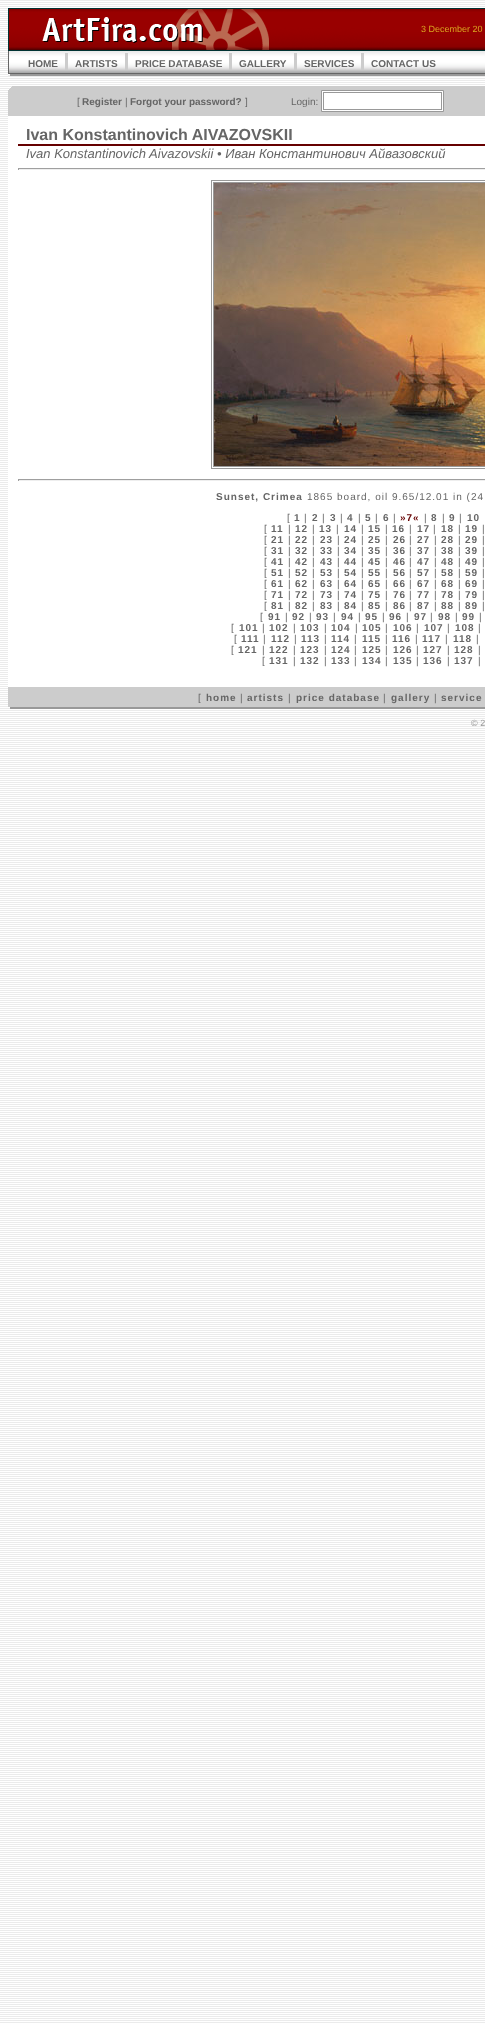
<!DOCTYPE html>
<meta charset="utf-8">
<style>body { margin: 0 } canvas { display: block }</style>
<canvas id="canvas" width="485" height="2023"></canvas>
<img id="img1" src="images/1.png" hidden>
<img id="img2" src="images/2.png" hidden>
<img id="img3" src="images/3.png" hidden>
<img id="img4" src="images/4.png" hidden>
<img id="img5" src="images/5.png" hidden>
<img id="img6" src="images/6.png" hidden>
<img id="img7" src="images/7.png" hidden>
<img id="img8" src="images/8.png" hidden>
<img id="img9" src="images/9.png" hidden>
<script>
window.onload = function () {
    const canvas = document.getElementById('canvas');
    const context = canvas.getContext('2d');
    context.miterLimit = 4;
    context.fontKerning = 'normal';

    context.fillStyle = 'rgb(255, 255, 255)';
    context.fillRect(0, 0, 485, 2023);
    context.drawImage(document.getElementById('img1'), 0, 0, 485, 2023);
    context.drawImage(document.getElementById('img2'), 8, 8, 387, 42);
    context.drawImage(document.getElementById('img3'), 395, 8, 90, 42);
    context.drawImage(document.getElementById('img4'), 8, 50, 477, 26);
    context.drawImage(document.getElementById('img5'), 8, 51, 2, 25);
    context.fillStyle = 'rgb(204, 204, 204)';
    context.fillRect(65, 53, 3, 17);
    context.fillRect(125, 53, 3, 17);
    context.fillRect(229, 53, 3, 17);
    context.fillRect(294, 53, 3, 17);
    context.fillRect(361, 53, 3, 17);
    context.drawImage(document.getElementById('img6'), 8, 86, 20, 30);
    context.fillRect(28, 86, 457, 30);
    context.fillStyle = 'rgb(255, 255, 255)';
    context.beginPath();
    context.rect(321.5, 90.5, 122, 21);
    context.fill();
    context.strokeStyle = 'rgb(153, 153, 153)';
    context.stroke();
    context.strokeRect(323.5, 92.5, 118, 17);
    context.fillRect(8, 116, 477, 571);
    context.fillStyle = 'rgb(102, 0, 0)';
    context.fillRect(18, 144, 467, 2);
    context.fillStyle = 'rgb(159, 159, 159)';
    context.fillRect(18, 168, 467, 1);
    context.fillStyle = 'rgb(238, 238, 238)';
    context.fillRect(18, 169, 467, 1);
    context.fillStyle = 'rgb(159, 159, 159)';
    context.fillRect(18, 168, 1, 2);
    context.strokeRect(211.5, 180.5, 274, 288);
    context.strokeRect(213.5, 182.5, 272, 284);
    context.drawImage(document.getElementById('img7'), 214, 183, 271, 283);
    context.fillRect(18, 479, 467, 1);
    context.fillStyle = 'rgb(238, 238, 238)';
    context.fillRect(18, 480, 467, 1);
    context.fillStyle = 'rgb(159, 159, 159)';
    context.fillRect(18, 479, 1, 2);
    context.drawImage(document.getElementById('img8'), 8, 687, 20, 22);
    context.drawImage(document.getElementById('img9'), 28, 687, 457, 22);
    context.font = '9px Liberation Sans';
    context.fillStyle = 'rgb(218, 165, 32)';
    context.fillText('3 December 20', 421, 32);
    context.font = 'bold 10px Liberation Sans';
    context.fillStyle = 'rgb(102, 102, 102)';
    context.fillText('HOME', 28, 67);
    context.fillText('ARTISTS', 75, 67);
    context.fillText('PRICE DATABASE', 135, 67);
    context.fillText('GALLERY', 239, 67);
    context.fillText('SERVICES', 304, 67);
    context.fillText('CONTACT US', 371, 67);
    context.font = '10px Liberation Sans';
    context.fillText('[', 77, 105);
    context.font = 'bold 10px Liberation Sans';
    context.fillText('Register', 82, 105);
    context.font = '10px Liberation Sans';
    context.fillText('|', 125, 105);
    context.font = 'bold 10px Liberation Sans';
    context.fillText('Forgot your password?', 130, 105);
    context.font = '10px Liberation Sans';
    context.fillText(']', 245, 105);
    context.fillText('Login:', 291, 105);
    context.font = 'bold 16px Liberation Sans';
    context.fillText('Ivan Konstantinovich AIVAZOVSKII', 26, 140);
    context.font = 'italic 13px Liberation Sans';
    context.fillText('Ivan Konstantinovich Aivazovskii • Иван Константинович Айвазовский', 26, 158);
    context.letterSpacing = '1px';
    context.font = 'bold 10px Liberation Sans';
    context.fillText('Sunset, Crimea', 216, 500);
    context.font = '10px Liberation Sans';
    context.fillText('1865 board, oil 9.65/12.01 in (24', 307, 500);
    context.fillText('[', 287, 521);
    context.font = 'bold 10px Liberation Sans';
    context.fillText('1', 294, 521);
    context.font = '10px Liberation Sans';
    context.fillText('|', 304, 521);
    context.font = 'bold 10px Liberation Sans';
    context.fillText('2', 312, 521);
    context.font = '10px Liberation Sans';
    context.fillText('|', 322, 521);
    context.font = 'bold 10px Liberation Sans';
    context.fillText('3', 330, 521);
    context.font = '10px Liberation Sans';
    context.fillText('|', 340, 521);
    context.font = 'bold 10px Liberation Sans';
    context.fillText('4', 347, 521);
    context.font = '10px Liberation Sans';
    context.fillText('|', 358, 521);
    context.font = 'bold 10px Liberation Sans';
    context.fillText('5', 365, 521);
    context.font = '10px Liberation Sans';
    context.fillText('|', 375, 521);
    context.font = 'bold 10px Liberation Sans';
    context.fillText('6', 383, 521);
    context.font = '10px Liberation Sans';
    context.fillText('|', 393, 521);
    context.font = 'bold 10px Liberation Sans';
    context.fillStyle = 'rgb(102, 0, 0)';
    context.fillText('»7«', 400, 521);
    context.font = '10px Liberation Sans';
    context.fillStyle = 'rgb(102, 102, 102)';
    context.fillText('|', 424, 521);
    context.font = 'bold 10px Liberation Sans';
    context.fillText('8', 431, 521);
    context.font = '10px Liberation Sans';
    context.fillText('|', 442, 521);
    context.font = 'bold 10px Liberation Sans';
    context.fillText('9', 449, 521);
    context.font = '10px Liberation Sans';
    context.fillText('|', 459, 521);
    context.font = 'bold 10px Liberation Sans';
    context.fillText('10', 467, 521);
    context.font = '10px Liberation Sans';
    context.fillText('[', 264, 532);
    context.font = 'bold 10px Liberation Sans';
    context.fillText('11', 271, 532);
    context.font = '10px Liberation Sans';
    context.fillText('|', 288, 532);
    context.font = 'bold 10px Liberation Sans';
    context.fillText('12', 295, 532);
    context.font = '10px Liberation Sans';
    context.fillText('|', 312, 532);
    context.font = 'bold 10px Liberation Sans';
    context.fillText('13', 319, 532);
    context.font = '10px Liberation Sans';
    context.fillText('|', 336, 532);
    context.font = 'bold 10px Liberation Sans';
    context.fillText('14', 344, 532);
    context.font = '10px Liberation Sans';
    context.fillText('|', 361, 532);
    context.font = 'bold 10px Liberation Sans';
    context.fillText('15', 368, 532);
    context.font = '10px Liberation Sans';
    context.fillText('|', 385, 532);
    context.font = 'bold 10px Liberation Sans';
    context.fillText('16', 392, 532);
    context.font = '10px Liberation Sans';
    context.fillText('|', 409, 532);
    context.font = 'bold 10px Liberation Sans';
    context.fillText('17', 417, 532);
    context.font = '10px Liberation Sans';
    context.fillText('|', 433, 532);
    context.font = 'bold 10px Liberation Sans';
    context.fillText('18', 441, 532);
    context.font = '10px Liberation Sans';
    context.fillText('|', 458, 532);
    context.font = 'bold 10px Liberation Sans';
    context.fillText('19', 465, 532);
    context.font = '10px Liberation Sans';
    context.fillText('|', 482, 532);
    context.fillText('[', 264, 543);
    context.font = 'bold 10px Liberation Sans';
    context.fillText('21', 271, 543);
    context.font = '10px Liberation Sans';
    context.fillText('|', 288, 543);
    context.font = 'bold 10px Liberation Sans';
    context.fillText('22', 295, 543);
    context.font = '10px Liberation Sans';
    context.fillText('|', 312, 543);
    context.font = 'bold 10px Liberation Sans';
    context.fillText('23', 320, 543);
    context.font = '10px Liberation Sans';
    context.fillText('|', 337, 543);
    context.font = 'bold 10px Liberation Sans';
    context.fillText('24', 344, 543);
    context.font = '10px Liberation Sans';
    context.fillText('|', 361, 543);
    context.font = 'bold 10px Liberation Sans';
    context.fillText('25', 368, 543);
    context.font = '10px Liberation Sans';
    context.fillText('|', 385, 543);
    context.font = 'bold 10px Liberation Sans';
    context.fillText('26', 393, 543);
    context.font = '10px Liberation Sans';
    context.fillText('|', 409, 543);
    context.font = 'bold 10px Liberation Sans';
    context.fillText('27', 417, 543);
    context.font = '10px Liberation Sans';
    context.fillText('|', 434, 543);
    context.font = 'bold 10px Liberation Sans';
    context.fillText('28', 441, 543);
    context.font = '10px Liberation Sans';
    context.fillText('|', 458, 543);
    context.font = 'bold 10px Liberation Sans';
    context.fillText('29', 465, 543);
    context.font = '10px Liberation Sans';
    context.fillText('|', 482, 543);
    context.fillText('[', 264, 554);
    context.font = 'bold 10px Liberation Sans';
    context.fillText('31', 271, 554);
    context.font = '10px Liberation Sans';
    context.fillText('|', 288, 554);
    context.font = 'bold 10px Liberation Sans';
    context.fillText('32', 295, 554);
    context.font = '10px Liberation Sans';
    context.fillText('|', 312, 554);
    context.font = 'bold 10px Liberation Sans';
    context.fillText('33', 320, 554);
    context.font = '10px Liberation Sans';
    context.fillText('|', 337, 554);
    context.font = 'bold 10px Liberation Sans';
    context.fillText('34', 344, 554);
    context.font = '10px Liberation Sans';
    context.fillText('|', 361, 554);
    context.font = 'bold 10px Liberation Sans';
    context.fillText('35', 368, 554);
    context.font = '10px Liberation Sans';
    context.fillText('|', 385, 554);
    context.font = 'bold 10px Liberation Sans';
    context.fillText('36', 393, 554);
    context.font = '10px Liberation Sans';
    context.fillText('|', 409, 554);
    context.font = 'bold 10px Liberation Sans';
    context.fillText('37', 417, 554);
    context.font = '10px Liberation Sans';
    context.fillText('|', 434, 554);
    context.font = 'bold 10px Liberation Sans';
    context.fillText('38', 441, 554);
    context.font = '10px Liberation Sans';
    context.fillText('|', 458, 554);
    context.font = 'bold 10px Liberation Sans';
    context.fillText('39', 465, 554);
    context.font = '10px Liberation Sans';
    context.fillText('|', 482, 554);
    context.fillText('[', 264, 565);
    context.font = 'bold 10px Liberation Sans';
    context.fillText('41', 271, 565);
    context.font = '10px Liberation Sans';
    context.fillText('|', 288, 565);
    context.font = 'bold 10px Liberation Sans';
    context.fillText('42', 295, 565);
    context.font = '10px Liberation Sans';
    context.fillText('|', 312, 565);
    context.font = 'bold 10px Liberation Sans';
    context.fillText('43', 320, 565);
    context.font = '10px Liberation Sans';
    context.fillText('|', 337, 565);
    context.font = 'bold 10px Liberation Sans';
    context.fillText('44', 344, 565);
    context.font = '10px Liberation Sans';
    context.fillText('|', 361, 565);
    context.font = 'bold 10px Liberation Sans';
    context.fillText('45', 368, 565);
    context.font = '10px Liberation Sans';
    context.fillText('|', 385, 565);
    context.font = 'bold 10px Liberation Sans';
    context.fillText('46', 393, 565);
    context.font = '10px Liberation Sans';
    context.fillText('|', 409, 565);
    context.font = 'bold 10px Liberation Sans';
    context.fillText('47', 417, 565);
    context.font = '10px Liberation Sans';
    context.fillText('|', 434, 565);
    context.font = 'bold 10px Liberation Sans';
    context.fillText('48', 441, 565);
    context.font = '10px Liberation Sans';
    context.fillText('|', 458, 565);
    context.font = 'bold 10px Liberation Sans';
    context.fillText('49', 465, 565);
    context.font = '10px Liberation Sans';
    context.fillText('|', 482, 565);
    context.fillText('[', 264, 576);
    context.font = 'bold 10px Liberation Sans';
    context.fillText('51', 271, 576);
    context.font = '10px Liberation Sans';
    context.fillText('|', 288, 576);
    context.font = 'bold 10px Liberation Sans';
    context.fillText('52', 295, 576);
    context.font = '10px Liberation Sans';
    context.fillText('|', 312, 576);
    context.font = 'bold 10px Liberation Sans';
    context.fillText('53', 320, 576);
    context.font = '10px Liberation Sans';
    context.fillText('|', 337, 576);
    context.font = 'bold 10px Liberation Sans';
    context.fillText('54', 344, 576);
    context.font = '10px Liberation Sans';
    context.fillText('|', 361, 576);
    context.font = 'bold 10px Liberation Sans';
    context.fillText('55', 368, 576);
    context.font = '10px Liberation Sans';
    context.fillText('|', 385, 576);
    context.font = 'bold 10px Liberation Sans';
    context.fillText('56', 393, 576);
    context.font = '10px Liberation Sans';
    context.fillText('|', 409, 576);
    context.font = 'bold 10px Liberation Sans';
    context.fillText('57', 417, 576);
    context.font = '10px Liberation Sans';
    context.fillText('|', 434, 576);
    context.font = 'bold 10px Liberation Sans';
    context.fillText('58', 441, 576);
    context.font = '10px Liberation Sans';
    context.fillText('|', 458, 576);
    context.font = 'bold 10px Liberation Sans';
    context.fillText('59', 465, 576);
    context.font = '10px Liberation Sans';
    context.fillText('|', 482, 576);
    context.fillText('[', 264, 587);
    context.font = 'bold 10px Liberation Sans';
    context.fillText('61', 271, 587);
    context.font = '10px Liberation Sans';
    context.fillText('|', 288, 587);
    context.font = 'bold 10px Liberation Sans';
    context.fillText('62', 295, 587);
    context.font = '10px Liberation Sans';
    context.fillText('|', 312, 587);
    context.font = 'bold 10px Liberation Sans';
    context.fillText('63', 320, 587);
    context.font = '10px Liberation Sans';
    context.fillText('|', 337, 587);
    context.font = 'bold 10px Liberation Sans';
    context.fillText('64', 344, 587);
    context.font = '10px Liberation Sans';
    context.fillText('|', 361, 587);
    context.font = 'bold 10px Liberation Sans';
    context.fillText('65', 368, 587);
    context.font = '10px Liberation Sans';
    context.fillText('|', 385, 587);
    context.font = 'bold 10px Liberation Sans';
    context.fillText('66', 393, 587);
    context.font = '10px Liberation Sans';
    context.fillText('|', 409, 587);
    context.font = 'bold 10px Liberation Sans';
    context.fillText('67', 417, 587);
    context.font = '10px Liberation Sans';
    context.fillText('|', 434, 587);
    context.font = 'bold 10px Liberation Sans';
    context.fillText('68', 441, 587);
    context.font = '10px Liberation Sans';
    context.fillText('|', 458, 587);
    context.font = 'bold 10px Liberation Sans';
    context.fillText('69', 465, 587);
    context.font = '10px Liberation Sans';
    context.fillText('|', 482, 587);
    context.fillText('[', 264, 598);
    context.font = 'bold 10px Liberation Sans';
    context.fillText('71', 271, 598);
    context.font = '10px Liberation Sans';
    context.fillText('|', 288, 598);
    context.font = 'bold 10px Liberation Sans';
    context.fillText('72', 295, 598);
    context.font = '10px Liberation Sans';
    context.fillText('|', 312, 598);
    context.font = 'bold 10px Liberation Sans';
    context.fillText('73', 320, 598);
    context.font = '10px Liberation Sans';
    context.fillText('|', 337, 598);
    context.font = 'bold 10px Liberation Sans';
    context.fillText('74', 344, 598);
    context.font = '10px Liberation Sans';
    context.fillText('|', 361, 598);
    context.font = 'bold 10px Liberation Sans';
    context.fillText('75', 368, 598);
    context.font = '10px Liberation Sans';
    context.fillText('|', 385, 598);
    context.font = 'bold 10px Liberation Sans';
    context.fillText('76', 393, 598);
    context.font = '10px Liberation Sans';
    context.fillText('|', 409, 598);
    context.font = 'bold 10px Liberation Sans';
    context.fillText('77', 417, 598);
    context.font = '10px Liberation Sans';
    context.fillText('|', 434, 598);
    context.font = 'bold 10px Liberation Sans';
    context.fillText('78', 441, 598);
    context.font = '10px Liberation Sans';
    context.fillText('|', 458, 598);
    context.font = 'bold 10px Liberation Sans';
    context.fillText('79', 465, 598);
    context.font = '10px Liberation Sans';
    context.fillText('|', 482, 598);
    context.fillText('[', 264, 609);
    context.font = 'bold 10px Liberation Sans';
    context.fillText('81', 271, 609);
    context.font = '10px Liberation Sans';
    context.fillText('|', 288, 609);
    context.font = 'bold 10px Liberation Sans';
    context.fillText('82', 295, 609);
    context.font = '10px Liberation Sans';
    context.fillText('|', 312, 609);
    context.font = 'bold 10px Liberation Sans';
    context.fillText('83', 320, 609);
    context.font = '10px Liberation Sans';
    context.fillText('|', 337, 609);
    context.font = 'bold 10px Liberation Sans';
    context.fillText('84', 344, 609);
    context.font = '10px Liberation Sans';
    context.fillText('|', 361, 609);
    context.font = 'bold 10px Liberation Sans';
    context.fillText('85', 368, 609);
    context.font = '10px Liberation Sans';
    context.fillText('|', 385, 609);
    context.font = 'bold 10px Liberation Sans';
    context.fillText('86', 393, 609);
    context.font = '10px Liberation Sans';
    context.fillText('|', 409, 609);
    context.font = 'bold 10px Liberation Sans';
    context.fillText('87', 417, 609);
    context.font = '10px Liberation Sans';
    context.fillText('|', 434, 609);
    context.font = 'bold 10px Liberation Sans';
    context.fillText('88', 441, 609);
    context.font = '10px Liberation Sans';
    context.fillText('|', 458, 609);
    context.font = 'bold 10px Liberation Sans';
    context.fillText('89', 465, 609);
    context.font = '10px Liberation Sans';
    context.fillText('|', 482, 609);
    context.fillText('[', 260, 620);
    context.font = 'bold 10px Liberation Sans';
    context.fillText('91', 268, 620);
    context.font = '10px Liberation Sans';
    context.fillText('|', 285, 620);
    context.font = 'bold 10px Liberation Sans';
    context.fillText('92', 292, 620);
    context.font = '10px Liberation Sans';
    context.fillText('|', 309, 620);
    context.font = 'bold 10px Liberation Sans';
    context.fillText('93', 316, 620);
    context.font = '10px Liberation Sans';
    context.fillText('|', 333, 620);
    context.font = 'bold 10px Liberation Sans';
    context.fillText('94', 341, 620);
    context.font = '10px Liberation Sans';
    context.fillText('|', 358, 620);
    context.font = 'bold 10px Liberation Sans';
    context.fillText('95', 365, 620);
    context.font = '10px Liberation Sans';
    context.fillText('|', 382, 620);
    context.font = 'bold 10px Liberation Sans';
    context.fillText('96', 389, 620);
    context.font = '10px Liberation Sans';
    context.fillText('|', 406, 620);
    context.font = 'bold 10px Liberation Sans';
    context.fillText('97', 414, 620);
    context.font = '10px Liberation Sans';
    context.fillText('|', 430, 620);
    context.font = 'bold 10px Liberation Sans';
    context.fillText('98', 438, 620);
    context.font = '10px Liberation Sans';
    context.fillText('|', 455, 620);
    context.font = 'bold 10px Liberation Sans';
    context.fillText('99', 462, 620);
    context.font = '10px Liberation Sans';
    context.fillText('|', 479, 620);
    context.fillText('[', 231, 631);
    context.font = 'bold 10px Liberation Sans';
    context.fillText('101', 239, 631);
    context.font = '10px Liberation Sans';
    context.fillText('|', 262, 631);
    context.font = 'bold 10px Liberation Sans';
    context.fillText('102', 269, 631);
    context.font = '10px Liberation Sans';
    context.fillText('|', 293, 631);
    context.font = 'bold 10px Liberation Sans';
    context.fillText('103', 300, 631);
    context.font = '10px Liberation Sans';
    context.fillText('|', 324, 631);
    context.font = 'bold 10px Liberation Sans';
    context.fillText('104', 331, 631);
    context.font = '10px Liberation Sans';
    context.fillText('|', 355, 631);
    context.font = 'bold 10px Liberation Sans';
    context.fillText('105', 362, 631);
    context.font = '10px Liberation Sans';
    context.fillText('|', 385, 631);
    context.font = 'bold 10px Liberation Sans';
    context.fillText('106', 393, 631);
    context.font = '10px Liberation Sans';
    context.fillText('|', 416, 631);
    context.font = 'bold 10px Liberation Sans';
    context.fillText('107', 424, 631);
    context.font = '10px Liberation Sans';
    context.fillText('|', 447, 631);
    context.font = 'bold 10px Liberation Sans';
    context.fillText('108', 455, 631);
    context.font = '10px Liberation Sans';
    context.fillText('|', 478, 631);
    context.fillText('[', 234, 642);
    context.font = 'bold 10px Liberation Sans';
    context.fillText('111', 241, 642);
    context.font = '10px Liberation Sans';
    context.fillText('|', 263, 642);
    context.font = 'bold 10px Liberation Sans';
    context.fillText('112', 271, 642);
    context.font = '10px Liberation Sans';
    context.fillText('|', 294, 642);
    context.font = 'bold 10px Liberation Sans';
    context.fillText('113', 301, 642);
    context.font = '10px Liberation Sans';
    context.fillText('|', 324, 642);
    context.font = 'bold 10px Liberation Sans';
    context.fillText('114', 331, 642);
    context.font = '10px Liberation Sans';
    context.fillText('|', 354, 642);
    context.font = 'bold 10px Liberation Sans';
    context.fillText('115', 362, 642);
    context.font = '10px Liberation Sans';
    context.fillText('|', 385, 642);
    context.font = 'bold 10px Liberation Sans';
    context.fillText('116', 392, 642);
    context.font = '10px Liberation Sans';
    context.fillText('|', 415, 642);
    context.font = 'bold 10px Liberation Sans';
    context.fillText('117', 422, 642);
    context.font = '10px Liberation Sans';
    context.fillText('|', 445, 642);
    context.font = 'bold 10px Liberation Sans';
    context.fillText('118', 453, 642);
    context.font = '10px Liberation Sans';
    context.fillText('|', 476, 642);
    context.fillText('[', 231, 653);
    context.font = 'bold 10px Liberation Sans';
    context.fillText('121', 238, 653);
    context.font = '10px Liberation Sans';
    context.fillText('|', 262, 653);
    context.font = 'bold 10px Liberation Sans';
    context.fillText('122', 269, 653);
    context.font = '10px Liberation Sans';
    context.fillText('|', 293, 653);
    context.font = 'bold 10px Liberation Sans';
    context.fillText('123', 300, 653);
    context.font = '10px Liberation Sans';
    context.fillText('|', 324, 653);
    context.font = 'bold 10px Liberation Sans';
    context.fillText('124', 331, 653);
    context.font = '10px Liberation Sans';
    context.fillText('|', 354, 653);
    context.font = 'bold 10px Liberation Sans';
    context.fillText('125', 362, 653);
    context.font = '10px Liberation Sans';
    context.fillText('|', 385, 653);
    context.font = 'bold 10px Liberation Sans';
    context.fillText('126', 393, 653);
    context.font = '10px Liberation Sans';
    context.fillText('|', 416, 653);
    context.font = 'bold 10px Liberation Sans';
    context.fillText('127', 423, 653);
    context.font = '10px Liberation Sans';
    context.fillText('|', 447, 653);
    context.font = 'bold 10px Liberation Sans';
    context.fillText('128', 454, 653);
    context.font = '10px Liberation Sans';
    context.fillText('|', 478, 653);
    context.fillText('[', 262, 664);
    context.font = 'bold 10px Liberation Sans';
    context.fillText('131', 269, 664);
    context.font = '10px Liberation Sans';
    context.fillText('|', 293, 664);
    context.font = 'bold 10px Liberation Sans';
    context.fillText('132', 300, 664);
    context.font = '10px Liberation Sans';
    context.fillText('|', 324, 664);
    context.font = 'bold 10px Liberation Sans';
    context.fillText('133', 331, 664);
    context.font = '10px Liberation Sans';
    context.fillText('|', 354, 664);
    context.font = 'bold 10px Liberation Sans';
    context.fillText('134', 362, 664);
    context.font = '10px Liberation Sans';
    context.fillText('|', 385, 664);
    context.font = 'bold 10px Liberation Sans';
    context.fillText('135', 393, 664);
    context.font = '10px Liberation Sans';
    context.fillText('|', 416, 664);
    context.font = 'bold 10px Liberation Sans';
    context.fillText('136', 423, 664);
    context.font = '10px Liberation Sans';
    context.fillText('|', 447, 664);
    context.font = 'bold 10px Liberation Sans';
    context.fillText('137', 454, 664);
    context.font = '10px Liberation Sans';
    context.fillText('|', 478, 664);
    context.fillText('[', 198, 701);
    context.font = 'bold 10px Liberation Sans';
    context.fillText('home', 206, 701);
    context.font = '10px Liberation Sans';
    context.fillText('|', 240, 701);
    context.font = 'bold 10px Liberation Sans';
    context.fillText('artists', 247, 701);
    context.font = '10px Liberation Sans';
    context.fillText('|', 288, 701);
    context.font = 'bold 10px Liberation Sans';
    context.fillText('price database', 296, 701);
    context.font = '10px Liberation Sans';
    context.fillText('|', 383, 701);
    context.font = 'bold 10px Liberation Sans';
    context.fillText('gallery', 391, 701);
    context.font = '10px Liberation Sans';
    context.fillText('|', 434, 701);
    context.font = 'bold 10px Liberation Sans';
    context.fillText('service', 441, 701);
    context.letterSpacing = '0px';
    context.font = '9px Liberation Sans';
    context.fillStyle = 'rgb(153, 153, 153)';
    context.fillText('© 2', 471, 726);
};
</script>
